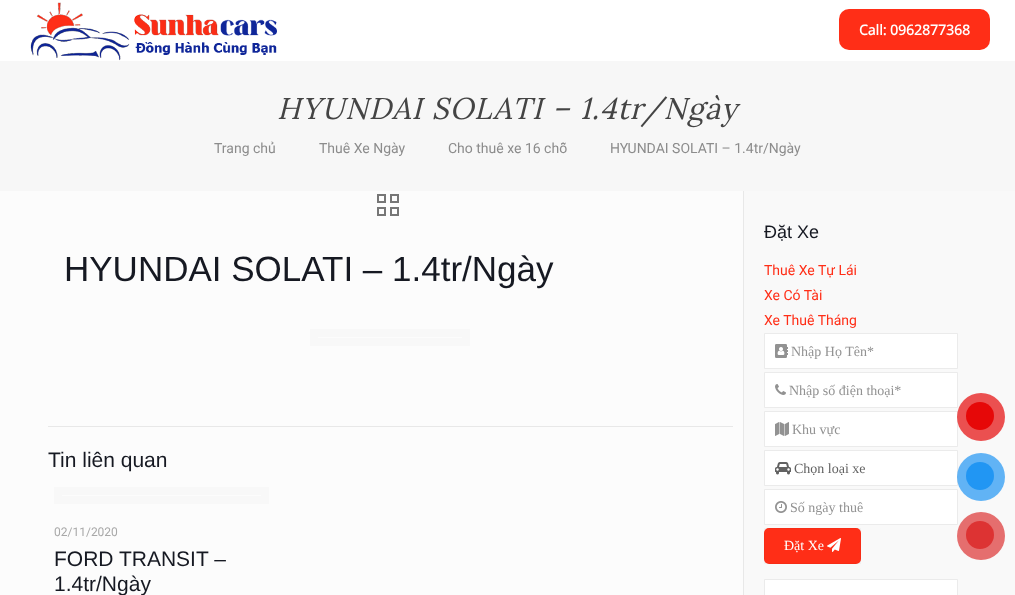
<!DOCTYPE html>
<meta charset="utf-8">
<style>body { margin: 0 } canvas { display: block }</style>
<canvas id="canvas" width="1015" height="595"></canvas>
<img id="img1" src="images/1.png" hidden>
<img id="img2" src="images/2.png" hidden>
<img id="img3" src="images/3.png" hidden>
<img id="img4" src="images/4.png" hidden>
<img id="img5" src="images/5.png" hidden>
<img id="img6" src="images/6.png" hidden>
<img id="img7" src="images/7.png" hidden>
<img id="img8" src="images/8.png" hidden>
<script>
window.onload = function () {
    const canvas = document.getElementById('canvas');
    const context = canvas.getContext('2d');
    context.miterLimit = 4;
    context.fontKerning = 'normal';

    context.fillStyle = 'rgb(252, 252, 252)';
    context.fillRect(0, 0, 1015, 595);
    context.fillStyle = 'rgb(255, 255, 255)';
    context.fillRect(0, 0, 1015, 61);
    context.drawImage(document.getElementById('img1'), 30, 2, 247, 59);
    context.fillStyle = 'rgb(255, 46, 23)';
    context.beginPath();
    context.roundRect(839, 9, 151, 41, 10);
    context.fill();
    context.fillStyle = 'rgb(247, 247, 247)';
    context.fillRect(0, 61, 1015, 130);
    context.drawImage(document.getElementById('img2'), 377, 194, 22, 22);
    context.strokeStyle = 'rgb(248, 248, 248)';
    context.lineWidth = 8;
    context.strokeRect(314, 333, 152, 9);
    context.fillStyle = 'rgb(232, 232, 232)';
    context.fillRect(48, 426, 685, 1);
    context.strokeRect(58, 491, 207, 9);
    context.fillRect(743, 191, 1, 404);
    context.fillStyle = 'rgb(249, 249, 249)';
    context.fillRect(744, 191, 271, 404);
    context.fillStyle = 'rgb(255, 255, 255)';
    context.beginPath();
    context.rect(764.5, 333.5, 193, 35);
    context.fill();
    context.strokeStyle = 'rgb(235, 235, 235)';
    context.lineWidth = 1;
    context.stroke();
    context.drawImage(document.getElementById('img3'), 775, 344, 13, 14);
    context.beginPath();
    context.rect(764.5, 372.5, 193, 35);
    context.fill();
    context.stroke();
    context.drawImage(document.getElementById('img4'), 775, 384, 11, 11);
    context.beginPath();
    context.rect(764.5, 411.5, 193, 35);
    context.fill();
    context.stroke();
    context.drawImage(document.getElementById('img5'), 775, 422, 14, 14);
    context.beginPath();
    context.rect(764.5, 450.5, 193, 35);
    context.fill();
    context.stroke();
    context.drawImage(document.getElementById('img6'), 775, 462, 16, 13);
    context.beginPath();
    context.rect(764.5, 489.5, 193, 35);
    context.fill();
    context.stroke();
    context.drawImage(document.getElementById('img7'), 775, 501, 12, 12);
    context.fillStyle = 'rgb(255, 46, 23)';
    context.beginPath();
    context.roundRect(764, 528, 97, 36, 5);
    context.fill();
    context.strokeStyle = 'rgba(0, 0, 0, 0.03)';
    context.strokeRect(764.5, 528.5, 96, 35);
    context.drawImage(document.getElementById('img8'), 827, 538, 14, 14);
    context.fillStyle = 'rgb(255, 255, 255)';
    context.beginPath();
    context.rect(764.5, 579.5, 193, 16);
    context.fill();
    context.strokeStyle = 'rgb(235, 235, 235)';
    context.stroke();
    context.fillStyle = 'rgba(230, 8, 8, 0.7)';
    context.beginPath();
    context.arc(981, 417, 24, 0, 2 * Math.PI);
    context.fill();
    context.fillStyle = 'rgb(230, 8, 8)';
    context.beginPath();
    context.arc(980, 416, 14, 0, 2 * Math.PI);
    context.fill();
    context.fillStyle = 'rgba(33, 150, 243, 0.7)';
    context.beginPath();
    context.arc(981, 477, 24, 0, 2 * Math.PI);
    context.fill();
    context.fillStyle = 'rgb(33, 150, 243)';
    context.beginPath();
    context.arc(980, 476, 14, 0, 2 * Math.PI);
    context.fill();
    context.fillStyle = 'rgb(229, 110, 110)';
    context.beginPath();
    context.arc(981, 536, 24, 0, 2 * Math.PI);
    context.fill();
    context.fillStyle = 'rgb(221, 51, 51)';
    context.beginPath();
    context.arc(980, 535, 14, 0, 2 * Math.PI);
    context.fill();
    context.font = 'bold 14px Open Sans';
    context.fillStyle = 'rgb(255, 255, 255)';
    context.fillText('Call: 0962877368', 859, 35);
    context.letterSpacing = '1px';
    context.font = 'italic 30px Lora';
    context.fillStyle = 'rgb(68, 68, 68)';
    context.fillText('HYUNDAI SOLATI – 1.4tr/Ngày', 277, 119);
    context.letterSpacing = '0px';
    context.font = '14px Roboto';
    context.fillStyle = 'rgb(140, 140, 140)';
    context.fillText('Trang chủ', 214, 153);
    context.fillText('Thuê Xe Ngày', 319, 153);
    context.fillText('Cho thuê xe 16 chỗ', 448, 153);
    context.fillText('HYUNDAI SOLATI – 1.4tr/Ngày', 610, 153);
    context.font = '35px Liberation Sans';
    context.fillStyle = 'rgb(22, 25, 34)';
    context.fillText('HYUNDAI SOLATI – 1.4tr/Ngày', 64, 281);
    context.font = '21px Liberation Sans';
    context.fillText('Tin liên quan', 48, 467);
    context.font = '12px Roboto';
    context.fillStyle = 'rgb(168, 168, 168)';
    context.fillText('02/11/2020', 54, 536);
    context.font = '21px Liberation Sans';
    context.fillStyle = 'rgb(22, 25, 34)';
    context.fillText('FORD TRANSIT –', 54, 566);
    context.fillText('1.4tr/Ngày', 54, 591);
    context.font = '18px Liberation Sans';
    context.fillText('Đặt Xe', 764, 238);
    context.font = '14px Roboto';
    context.fillStyle = 'rgb(255, 46, 23)';
    context.fillText('Thuê Xe Tự Lái', 764, 275);
    context.fillText('Xe Có Tài', 764, 300);
    context.fillText('Xe Thuê Tháng', 764, 325);
    context.font = '14px Liberation Serif';
    context.fillStyle = 'rgb(146, 146, 146)';
    context.fillText('Nhập Họ Tên*', 791, 356);
    context.fillText('Nhập số điện thoại*', 789, 395);
    context.fillText('Khu vực', 792, 434);
    context.save();
    context.beginPath();
    context.rect(775, 461, 172, 14);
    context.clip();
    context.fillStyle = 'rgb(98, 98, 98)';
    context.fillText('Chọn loại xe', 794, 473);
    context.restore();
    context.fillText('Số ngày thuê', 790, 512);
    context.fillStyle = 'rgb(255, 255, 255)';
    context.fillText('Đặt Xe', 784, 550);
};
</script>
